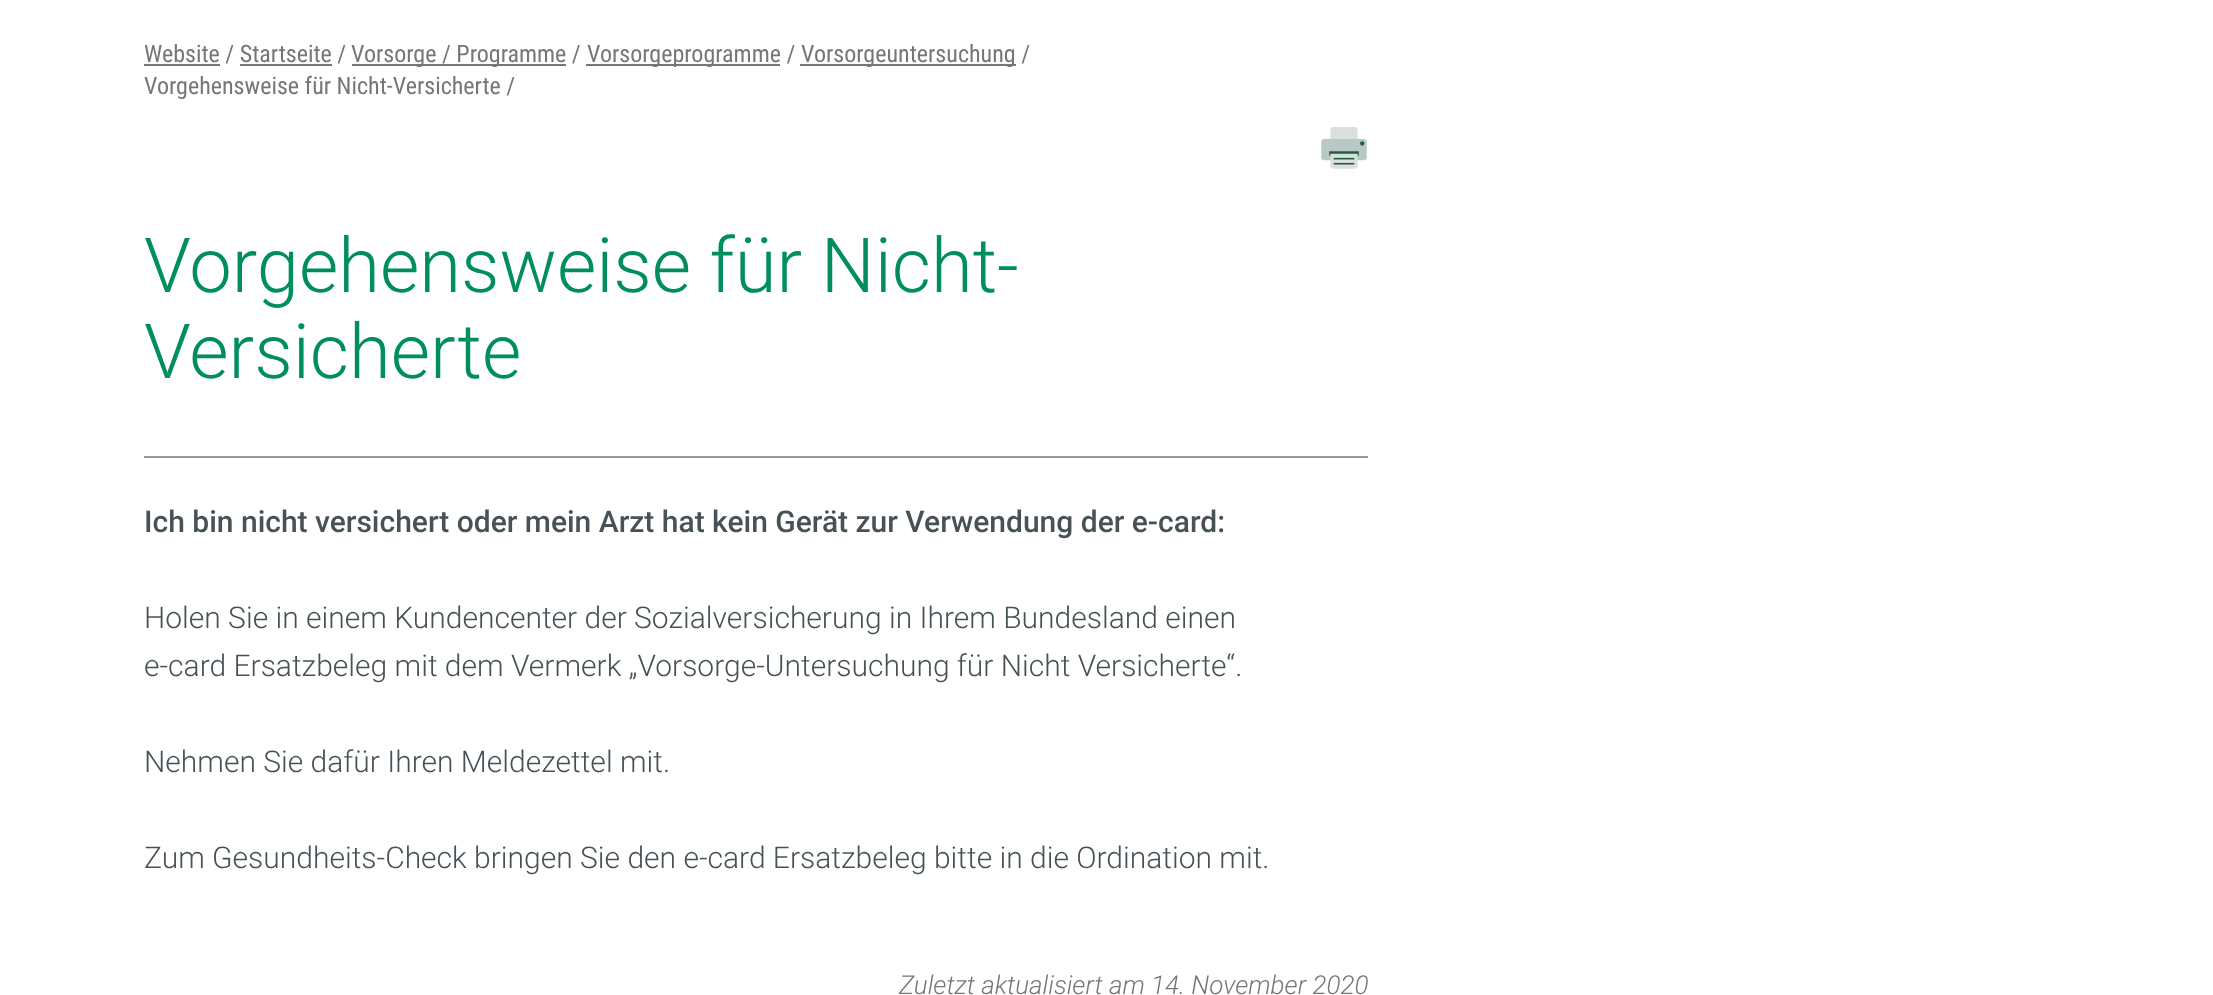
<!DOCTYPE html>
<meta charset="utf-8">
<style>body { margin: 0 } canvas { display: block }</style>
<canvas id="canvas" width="2213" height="995"></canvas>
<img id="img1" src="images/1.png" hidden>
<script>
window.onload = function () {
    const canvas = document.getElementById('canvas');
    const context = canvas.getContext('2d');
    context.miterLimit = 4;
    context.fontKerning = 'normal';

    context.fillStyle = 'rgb(255, 255, 255)';
    context.fillRect(0, 0, 2213, 995);
    context.fillStyle = 'rgb(118, 118, 118)';
    context.fillRect(144, 64, 76, 2);
    context.fillRect(352, 64, 214, 2);
    context.fillRect(586, 64, 194, 2);
    context.fillRect(800, 64, 216, 2);
    context.fillRect(240, 64, 92, 2);
    context.drawImage(document.getElementById('img1'), 1321, 127, 46, 42);
    context.fillStyle = 'rgb(153, 153, 153)';
    context.fillRect(144, 456, 1224, 2);
    context.font = '24px Roboto Condensed';
    context.fillStyle = 'rgb(118, 118, 118)';
    context.fillText('Website / Startseite /', 144, 62);
    context.fillText('Vorsorge / Programme /', 351, 62);
    context.fillText('Vorsorgeprogramme /', 587, 62);
    context.fillText('Vorsorgeuntersuchung /', 801, 62);
    context.fillText('Vorgehensweise für Nicht-Versicherte /', 144, 94);
    context.font = '300 76px Roboto';
    context.fillStyle = 'rgb(0, 142, 92)';
    context.fillText('Vorgehensweise für Nicht-', 144, 292);
    context.fillText('Versicherte', 144, 378);
    context.font = '500 30px Roboto';
    context.fillStyle = 'rgb(71, 82, 86)';
    context.fillText('Ich bin nicht versichert oder mein Arzt hat kein Gerät zur Verwendung der e-card:', 144, 532);
    context.font = '300 30px Roboto';
    context.fillText('Holen Sie in einem Kundencenter der Sozialversicherung in Ihrem Bundesland einen', 144, 628);
    context.fillText('e-card Ersatzbeleg mit dem Vermerk „Vorsorge-Untersuchung für Nicht Versicherte“.', 144, 676);
    context.fillText('Nehmen Sie dafür Ihren Meldezettel mit.', 144, 772);
    context.fillText('Zum Gesundheits-Check bringen Sie den e-card Ersatzbeleg bitte in die Ordination mit.', 144, 868);
    context.font = 'italic 300 26px Roboto';
    context.fillStyle = 'rgb(118, 118, 118)';
    context.fillText('Zuletzt aktualisiert am 14. November 2020', 899, 994);
};
</script>
